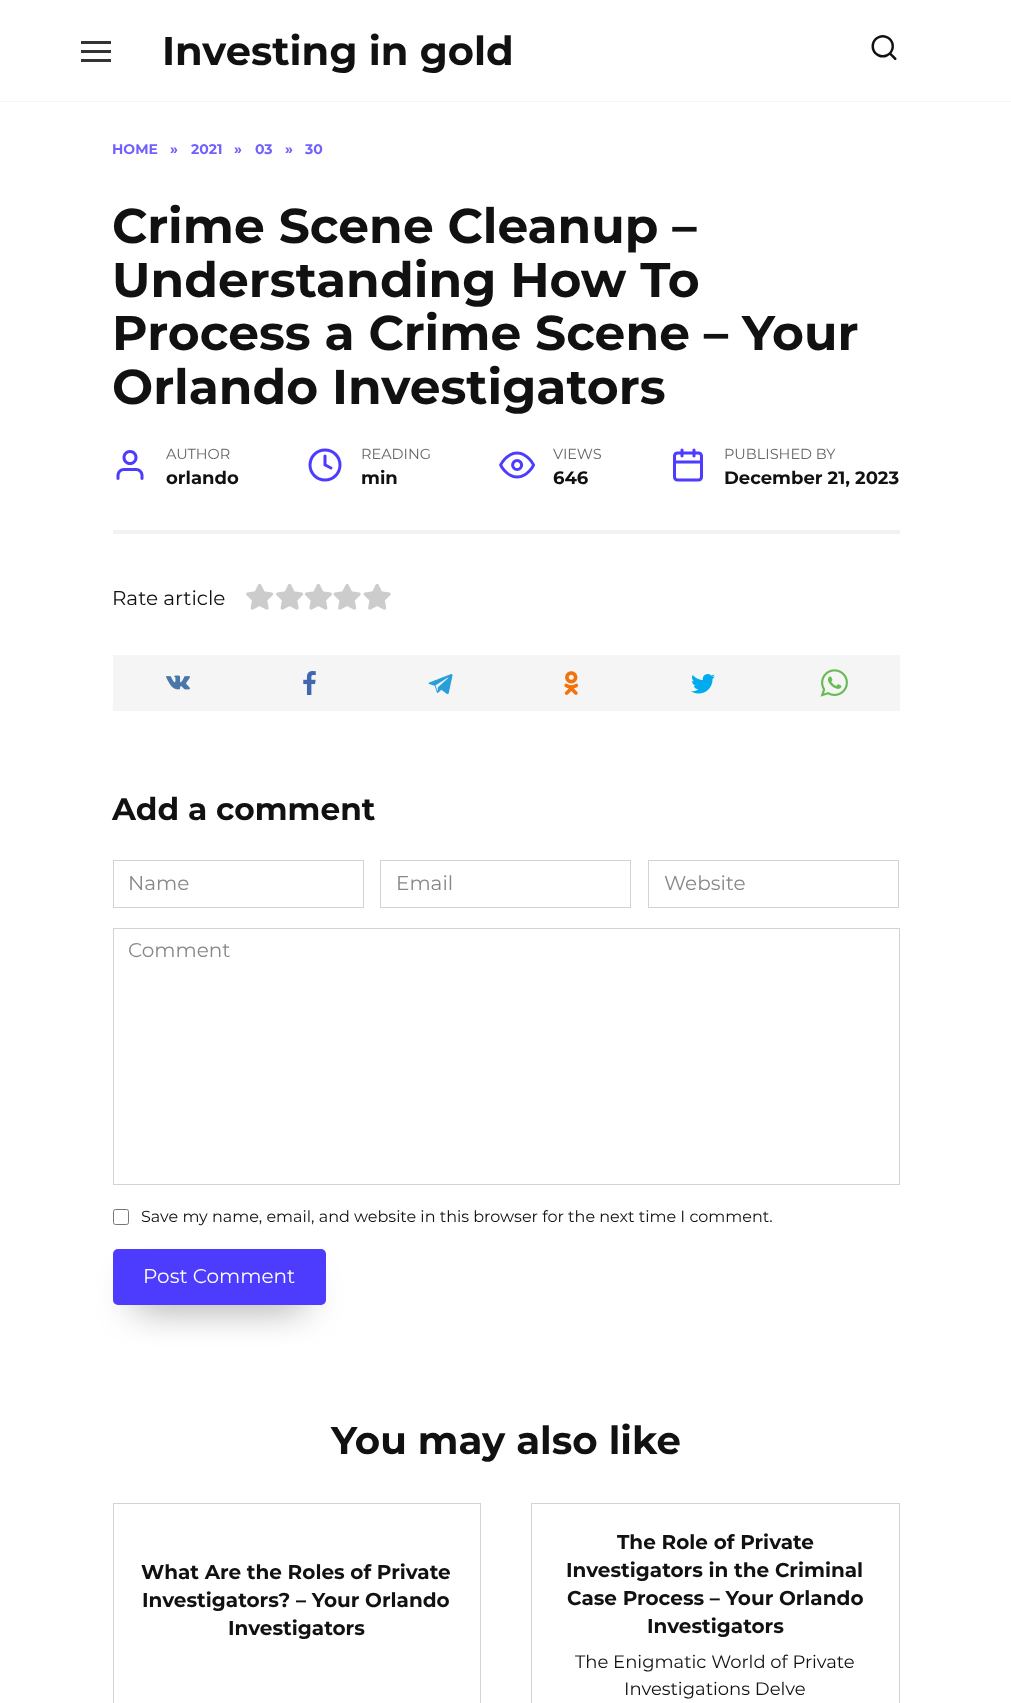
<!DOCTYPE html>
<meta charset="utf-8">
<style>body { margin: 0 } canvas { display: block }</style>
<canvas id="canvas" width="1011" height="1703"></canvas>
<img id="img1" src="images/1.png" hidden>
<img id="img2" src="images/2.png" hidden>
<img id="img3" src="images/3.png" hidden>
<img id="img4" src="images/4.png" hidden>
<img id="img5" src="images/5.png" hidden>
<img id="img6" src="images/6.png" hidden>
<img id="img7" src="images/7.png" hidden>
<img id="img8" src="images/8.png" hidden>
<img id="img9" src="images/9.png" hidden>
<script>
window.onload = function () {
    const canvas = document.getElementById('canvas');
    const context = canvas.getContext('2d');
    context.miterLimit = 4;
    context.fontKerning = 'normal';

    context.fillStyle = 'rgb(255, 255, 255)';
    context.fillRect(0, 0, 1011, 1703);
    context.fillStyle = 'rgb(242, 245, 249)';
    context.fillRect(0, 101, 1011, 1);
    context.fillStyle = 'rgb(51, 51, 51)';
    context.fillRect(81, 41, 30, 3);
    context.fillRect(81, 50, 30, 3);
    context.fillRect(81, 59, 30, 3);
    context.fillStyle = 'rgb(242, 242, 242)';
    context.fillRect(113, 530, 787, 4);
    context.drawImage(document.getElementById('img1'), 246, 583, 28, 27);
    context.drawImage(document.getElementById('img1'), 276, 583, 28, 27);
    context.drawImage(document.getElementById('img2'), 304, 583, 28, 27);
    context.drawImage(document.getElementById('img3'), 333, 583, 28, 27);
    context.drawImage(document.getElementById('img3'), 363, 583, 28, 27);
    context.fillStyle = 'rgb(245, 245, 245)';
    context.fillRect(113, 655, 787, 56);
    context.drawImage(document.getElementById('img4'), 166, 675, 24, 15);
    context.drawImage(document.getElementById('img5'), 303, 671, 13, 24);
    context.drawImage(document.getElementById('img6'), 428, 674, 25, 21);
    context.drawImage(document.getElementById('img7'), 564, 671, 15, 24);
    context.drawImage(document.getElementById('img8'), 691, 674, 24, 20);
    context.drawImage(document.getElementById('img9'), 820, 669, 28, 28);
    context.strokeStyle = 'rgb(206, 212, 218)';
    context.strokeRect(113.5, 860.5, 250, 47);
    context.strokeRect(380.5, 860.5, 250, 47);
    context.strokeRect(648.5, 860.5, 250, 47);
    context.strokeRect(113.5, 928.5, 786, 256);
    context.beginPath();
    context.roundRect(113.5, 1209.5, 15, 15, 2);
    context.strokeStyle = 'rgb(118, 118, 118)';
    context.stroke();
    context.fillStyle = 'rgba(0, 0, 0, 0.9)';
    context.filter = 'blur(19px)';
    context.beginPath();
    context.rect(135, 1290, 169, 11);
    context.fill();
    context.filter = 'none';
    context.fillStyle = 'rgb(77, 59, 254)';
    context.beginPath();
    context.roundRect(113, 1249, 213, 56, 5);
    context.fill();
    context.strokeStyle = 'rgb(206, 212, 218)';
    context.strokeRect(113.5, 1503.5, 367, 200);
    context.strokeRect(531.5, 1503.5, 368, 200);
    context.font = 'bold 40px Montserrat';
    context.fillStyle = 'rgb(17, 17, 17)';
    context.fillText('Investing in gold', 162, 65);
    context.font = '30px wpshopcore';
    context.fillText('🔍', 869, 60);
    context.font = 'bold 14px Montserrat';
    context.fillStyle = 'rgb(113, 98, 254)';
    context.fillText('HOME', 112, 154);
    context.fillText('»', 170, 154);
    context.fillText('2021', 191, 154);
    context.fillText('»', 234, 154);
    context.fillText('03', 255, 154);
    context.fillText('»', 285, 154);
    context.fillText('30', 305, 154);
    context.font = 'bold 48.75px Montserrat';
    context.fillStyle = 'rgb(17, 17, 17)';
    context.fillText('Crime Scene Cleanup –', 112, 243);
    context.fillText('Understanding How To', 112, 297);
    context.fillText('Process a Crime Scene – Your', 112, 350);
    context.fillText('Orlando Investigators', 112, 404);
    context.font = '36px wpshopcore';
    context.fillStyle = 'rgb(77, 59, 254)';
    context.fillText('👤', 112, 480);
    context.font = '14.5px Montserrat';
    context.fillStyle = 'rgb(102, 102, 102)';
    context.fillText('AUTHOR', 166, 459);
    context.font = 'bold 18px Montserrat';
    context.fillStyle = 'rgb(17, 17, 17)';
    context.fillText('orlando', 166, 484);
    context.font = '36px wpshopcore';
    context.fillStyle = 'rgb(77, 59, 254)';
    context.fillText('🕒', 307, 480);
    context.font = '14.5px Montserrat';
    context.fillStyle = 'rgb(102, 102, 102)';
    context.fillText('READING', 361, 459);
    context.font = 'bold 18px Montserrat';
    context.fillStyle = 'rgb(17, 17, 17)';
    context.fillText('min', 361, 484);
    context.font = '36px wpshopcore';
    context.fillStyle = 'rgb(77, 59, 254)';
    context.fillText('👀', 499, 480);
    context.font = '14.5px Montserrat';
    context.fillStyle = 'rgb(102, 102, 102)';
    context.fillText('VIEWS', 553, 459);
    context.font = 'bold 18px Montserrat';
    context.fillStyle = 'rgb(17, 17, 17)';
    context.fillText('646', 553, 484);
    context.font = '36px wpshopcore';
    context.fillStyle = 'rgb(77, 59, 254)';
    context.fillText('📅', 670, 480);
    context.font = '14.5px Montserrat';
    context.fillStyle = 'rgb(102, 102, 102)';
    context.fillText('PUBLISHED BY', 724, 459);
    context.font = 'bold 18px Montserrat';
    context.fillStyle = 'rgb(17, 17, 17)';
    context.fillText('December 21, 2023', 724, 484);
    context.font = '20px Montserrat';
    context.fillText('Rate article', 112, 605);
    context.font = 'bold 31.25px Montserrat';
    context.fillText('Add a comment', 112, 820);
    context.font = '20px Montserrat';
    context.fillStyle = 'rgb(136, 136, 136)';
    context.fillText('Name', 128, 890);
    context.fillText('Email', 396, 890);
    context.fillText('Website', 664, 890);
    context.fillText('Comment', 128, 957);
    context.font = '16px Montserrat';
    context.fillStyle = 'rgb(17, 17, 17)';
    context.fillText('Save my name, email, and website in this browser for the next time I comment.', 141, 1222);
    context.font = '20px Montserrat';
    context.fillStyle = 'rgb(255, 255, 255)';
    context.fillText('Post Comment', 143, 1283);
    context.font = 'bold 38.75px Montserrat';
    context.fillStyle = 'rgb(17, 17, 17)';
    context.fillText('You may also like', 331, 1454);
    context.font = 'bold 20px Montserrat';
    context.fillText('What Are the Roles of Private', 141, 1579);
    context.fillText('Investigators? – Your Orlando', 142, 1607);
    context.fillText('Investigators', 228, 1635);
    context.fillText('The Role of Private', 617, 1549);
    context.fillText('Investigators in the Criminal', 566, 1577);
    context.fillText('Case Process – Your Orlando', 567, 1605);
    context.fillText('Investigators', 647, 1633);
    context.font = '18px Montserrat';
    context.fillText('The Enigmatic World of Private', 575, 1668);
    context.fillText('Investigations Delve', 624, 1695);
};
</script>
